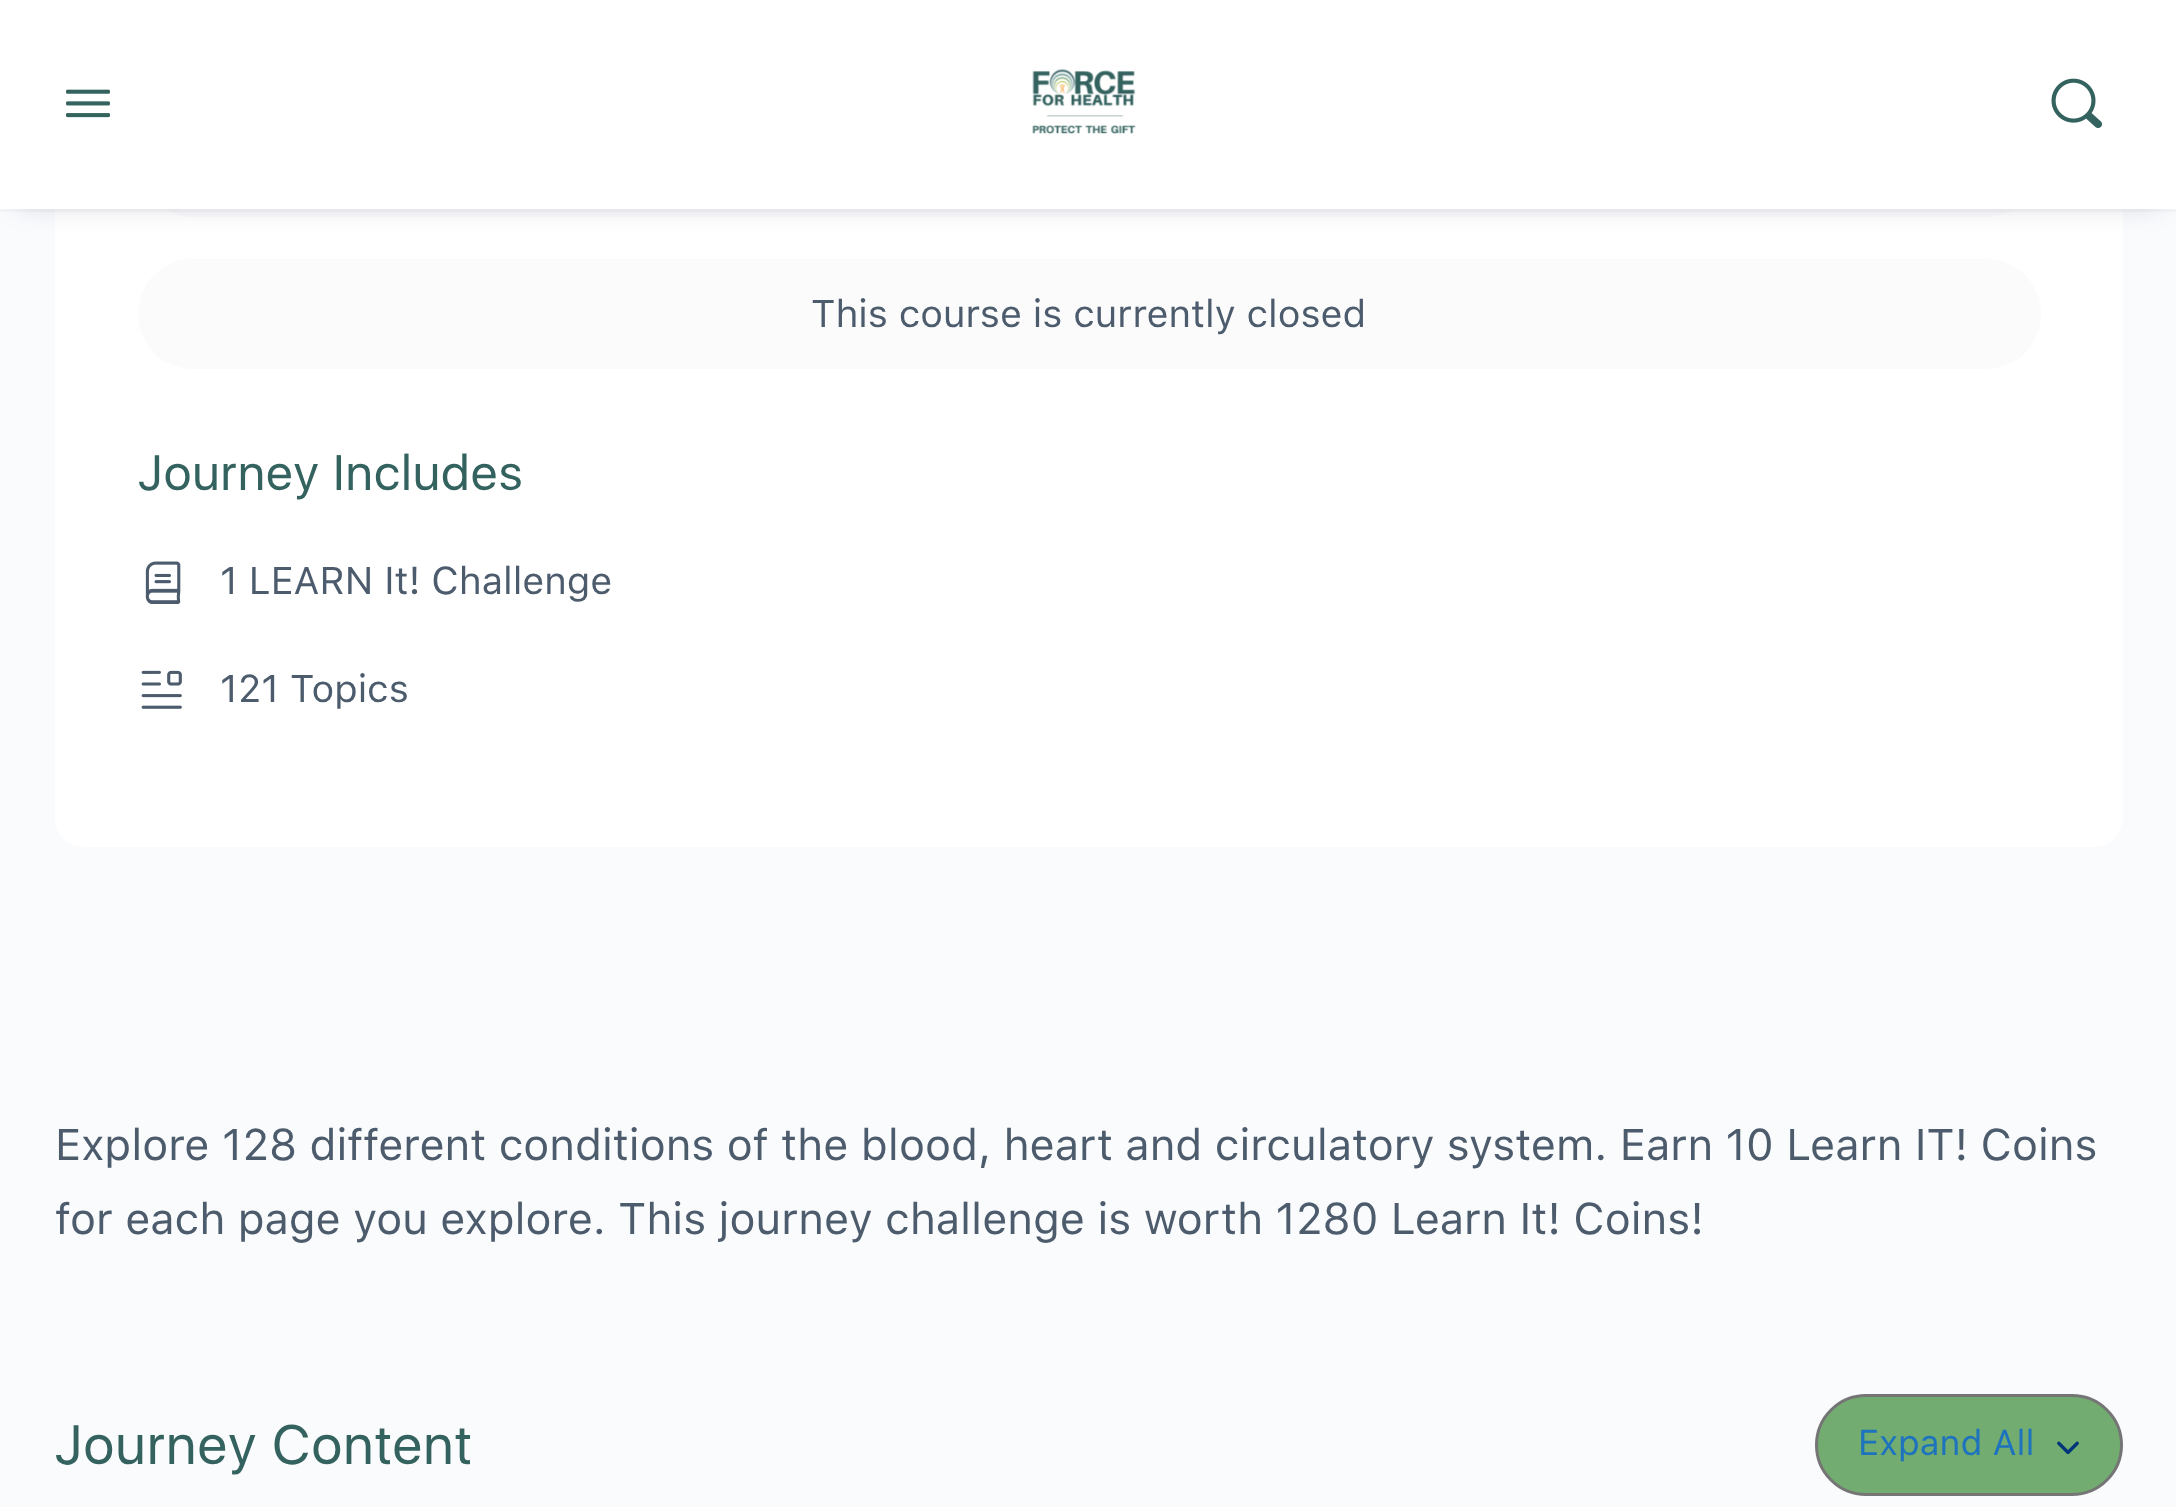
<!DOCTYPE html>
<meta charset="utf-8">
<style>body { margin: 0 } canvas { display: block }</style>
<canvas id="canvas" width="2176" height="1507"></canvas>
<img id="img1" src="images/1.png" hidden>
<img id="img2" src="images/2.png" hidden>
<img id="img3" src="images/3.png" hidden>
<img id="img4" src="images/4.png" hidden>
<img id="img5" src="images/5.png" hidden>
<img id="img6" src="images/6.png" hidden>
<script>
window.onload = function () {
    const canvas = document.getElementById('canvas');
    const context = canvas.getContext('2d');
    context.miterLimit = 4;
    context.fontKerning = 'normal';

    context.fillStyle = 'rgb(250, 251, 253)';
    context.fillRect(0, 0, 2176, 1507);
    context.fillStyle = 'rgb(255, 255, 255)';
    context.beginPath();
    context.roundRect(55, 52, 2068, 795, [0, 0, 28, 28]);
    context.fill();
    context.fillStyle = 'rgb(251, 251, 252)';
    context.beginPath();
    context.roundRect(138, 107, 1903, 110, 55);
    context.fill();
    context.fillStyle = 'rgba(65, 71, 108, 0.25)';
    context.filter = 'blur(14px)';
    context.beginPath();
    context.rect(19, 33, 2140, 171);
    context.fill();
    context.filter = 'none';
    context.fillStyle = 'rgba(139, 141, 157, 0.05)';
    context.fillRect(0, 209, 2176, 3);
    context.fillStyle = 'rgb(255, 255, 255)';
    context.fillRect(0, 0, 2176, 209);
    context.drawImage(document.getElementById('img1'), 66, 89, 44, 29);
    context.drawImage(document.getElementById('img2'), 1032, 68, 104, 66);
    context.drawImage(document.getElementById('img3'), 2051, 78, 51, 50);
    context.fillStyle = 'rgb(251, 251, 252)';
    context.beginPath();
    context.roundRect(138, 259, 1903, 110, 55);
    context.fill();
    context.drawImage(document.getElementById('img4'), 145, 561, 36, 43);
    context.drawImage(document.getElementById('img5'), 141, 670, 41, 39);
    context.fillStyle = 'rgb(114, 172, 112)';
    context.beginPath();
    context.roundRect(1816.5, 1395.5, 305, 99, 49.5);
    context.fill();
    context.strokeStyle = 'rgb(117, 117, 117)';
    context.lineWidth = 3;
    context.stroke();
    context.drawImage(document.getElementById('img6'), 2057, 1441, 22, 14);
    context.font = '38.5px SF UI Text';
    context.fillStyle = 'rgb(77, 92, 109)';
    context.fillText('This course is currently closed', 811, 327);
    context.letterSpacing = '1.4px';
    context.font = '49.5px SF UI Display';
    context.fillStyle = 'rgb(52, 99, 95)';
    context.fillText('Journey Includes', 138, 490);
    context.letterSpacing = '0px';
    context.font = '38.5px SF UI Text';
    context.fillStyle = 'rgb(77, 92, 109)';
    context.fillText('1 LEARN It! Challenge', 220, 594);
    context.fillText('121 Topics', 220, 702);
    context.font = '44px SF UI Text';
    context.fillText('Explore 128 different conditions of the blood, heart and circulatory system. Earn 10 Learn IT! Coins', 55, 1160);
    context.fillText('for each page you explore. This journey challenge is worth 1280 Learn It! Coins!', 55, 1234);
    context.letterSpacing = '1.6px';
    context.font = '55px SF UI Display';
    context.fillStyle = 'rgb(52, 99, 95)';
    context.fillText('Journey Content', 55, 1464);
    context.letterSpacing = '0px';
    context.font = '35.75px SF UI Text';
    context.fillStyle = 'rgb(30, 115, 190)';
    context.fillText('Expand All', 1858, 1455);
};
</script>
